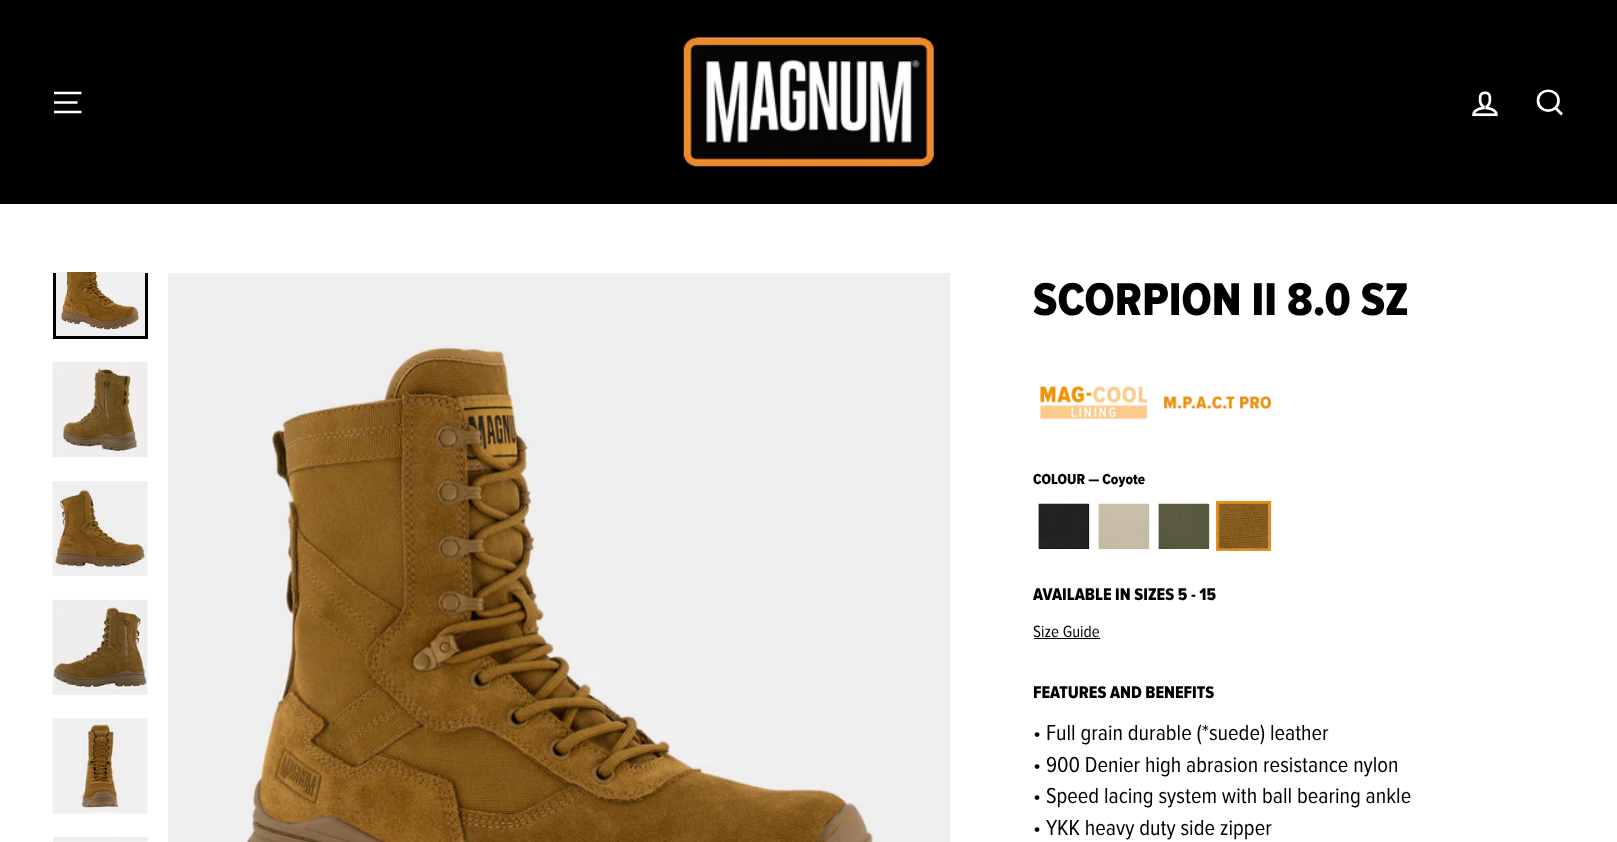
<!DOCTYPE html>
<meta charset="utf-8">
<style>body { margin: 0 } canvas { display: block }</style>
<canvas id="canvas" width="1617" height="842"></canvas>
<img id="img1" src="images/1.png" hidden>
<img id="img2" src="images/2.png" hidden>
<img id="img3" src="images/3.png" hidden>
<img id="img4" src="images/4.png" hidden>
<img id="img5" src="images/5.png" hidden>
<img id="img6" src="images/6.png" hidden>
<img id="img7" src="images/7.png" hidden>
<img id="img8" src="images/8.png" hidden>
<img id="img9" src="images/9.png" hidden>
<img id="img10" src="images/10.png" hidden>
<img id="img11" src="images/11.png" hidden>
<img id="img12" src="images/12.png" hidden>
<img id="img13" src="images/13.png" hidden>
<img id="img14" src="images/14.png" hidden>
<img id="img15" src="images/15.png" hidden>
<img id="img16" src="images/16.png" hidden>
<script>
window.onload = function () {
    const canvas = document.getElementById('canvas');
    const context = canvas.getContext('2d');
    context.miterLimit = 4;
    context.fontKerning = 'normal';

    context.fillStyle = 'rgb(255, 255, 255)';
    context.fillRect(0, 0, 1617, 842);
    context.fillStyle = 'rgb(0, 0, 0)';
    context.fillRect(0, 0, 1617, 204);
    context.beginPath();
    context.moveTo(54, 93);
    context.lineTo(81.5, 93);
    context.moveTo(54, 102.5);
    context.lineTo(77.5, 102.5);
    context.moveTo(54, 112);
    context.lineTo(81.5, 112);
    context.strokeStyle = 'rgb(255, 255, 255)';
    context.lineWidth = 2.7;
    context.stroke();
    context.drawImage(document.getElementById('img1'), 683, 37, 251, 130);
    context.drawImage(document.getElementById('img2'), 1472, 91, 26, 26);
    context.beginPath();
    context.moveTo(1558.5, 100.5);
    context.bezierCurveTo(1558.5, 114, 1538, 114, 1538, 100.5);
    context.bezierCurveTo(1538, 87.5, 1558.5, 87.5, 1558.5, 100.5);
    context.closePath();
    context.moveTo(1562, 114.5);
    context.lineTo(1555.5, 108);
    context.stroke();
    context.drawImage(document.getElementById('img3'), 53, 272, 95, 64);
    context.save();
    context.beginPath();
    context.rect(53, 273, 95, 66);
    context.clip();
    context.strokeStyle = 'rgb(0, 0, 0)';
    context.lineWidth = 3;
    context.strokeRect(54.5, 245.5, 92, 92);
    context.restore();
    context.drawImage(document.getElementById('img4'), 52, 362, 96, 95);
    context.drawImage(document.getElementById('img5'), 52, 481, 96, 95);
    context.drawImage(document.getElementById('img6'), 52, 599, 96, 96);
    context.drawImage(document.getElementById('img7'), 52, 718, 96, 96);
    context.drawImage(document.getElementById('img8'), 53, 837, 95, 5);
    context.drawImage(document.getElementById('img9'), 168, 273, 2, 569);
    context.drawImage(document.getElementById('img10'), 169, 273, 780, 569);
    context.fillStyle = 'rgb(240, 238, 237)';
    context.fillRect(949, 273, 1, 569);
    context.drawImage(document.getElementById('img11'), 1040, 385, 108, 35);
    context.drawImage(document.getElementById('img12'), 1164, 396, 107, 14);
    context.fillStyle = 'rgb(0, 0, 0)';
    context.fillRect(1039, 504, 50, 45);
    context.drawImage(document.getElementById('img13'), 1038, 503, 52, 46);
    context.fillStyle = 'rgb(210, 180, 140)';
    context.fillRect(1099, 504, 50, 45);
    context.drawImage(document.getElementById('img14'), 1098, 503, 52, 46);
    context.fillStyle = 'rgb(0, 128, 0)';
    context.fillRect(1159, 504, 50, 45);
    context.drawImage(document.getElementById('img15'), 1158, 503, 52, 46);
    context.strokeStyle = 'rgb(235, 145, 16)';
    context.lineWidth = 3;
    context.strokeRect(1217.5, 502.5, 52, 47);
    context.fillStyle = 'rgb(255, 255, 255)';
    context.fillRect(1219, 504, 50, 45);
    context.drawImage(document.getElementById('img16'), 1218, 503, 52, 46);
    context.fillStyle = 'rgb(0, 0, 0)';
    context.fillRect(1034, 638, 66, 1);
    context.font = '800 47.75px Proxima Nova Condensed';
    context.fillText('SCORPION II 8.0 SZ', 1033, 315);
    context.font = '800 15px Proxima Nova Condensed';
    context.fillText('COLOUR — Coyote', 1033, 484);
    context.font = '800 17.5px Proxima Nova Condensed';
    context.fillText('AVAILABLE IN SIZES 5 - 15', 1033, 600);
    context.font = '17px Proxima Nova Condensed';
    context.fillText('Size Guide', 1033, 637);
    context.font = '800 17.5px Proxima Nova Condensed';
    context.fillText('FEATURES AND BENEFITS', 1033, 698);
    context.font = '22.5px Proxima Nova Condensed';
    context.fillText('• Full grain durable (*suede) leather', 1033, 740);
    context.fillText('• 900 Denier high abrasion resistance nylon', 1033, 772);
    context.fillText('• Speed lacing system with ball bearing ankle', 1033, 803);
    context.fillText('• YKK heavy duty side zipper', 1033, 835);
};
</script>
